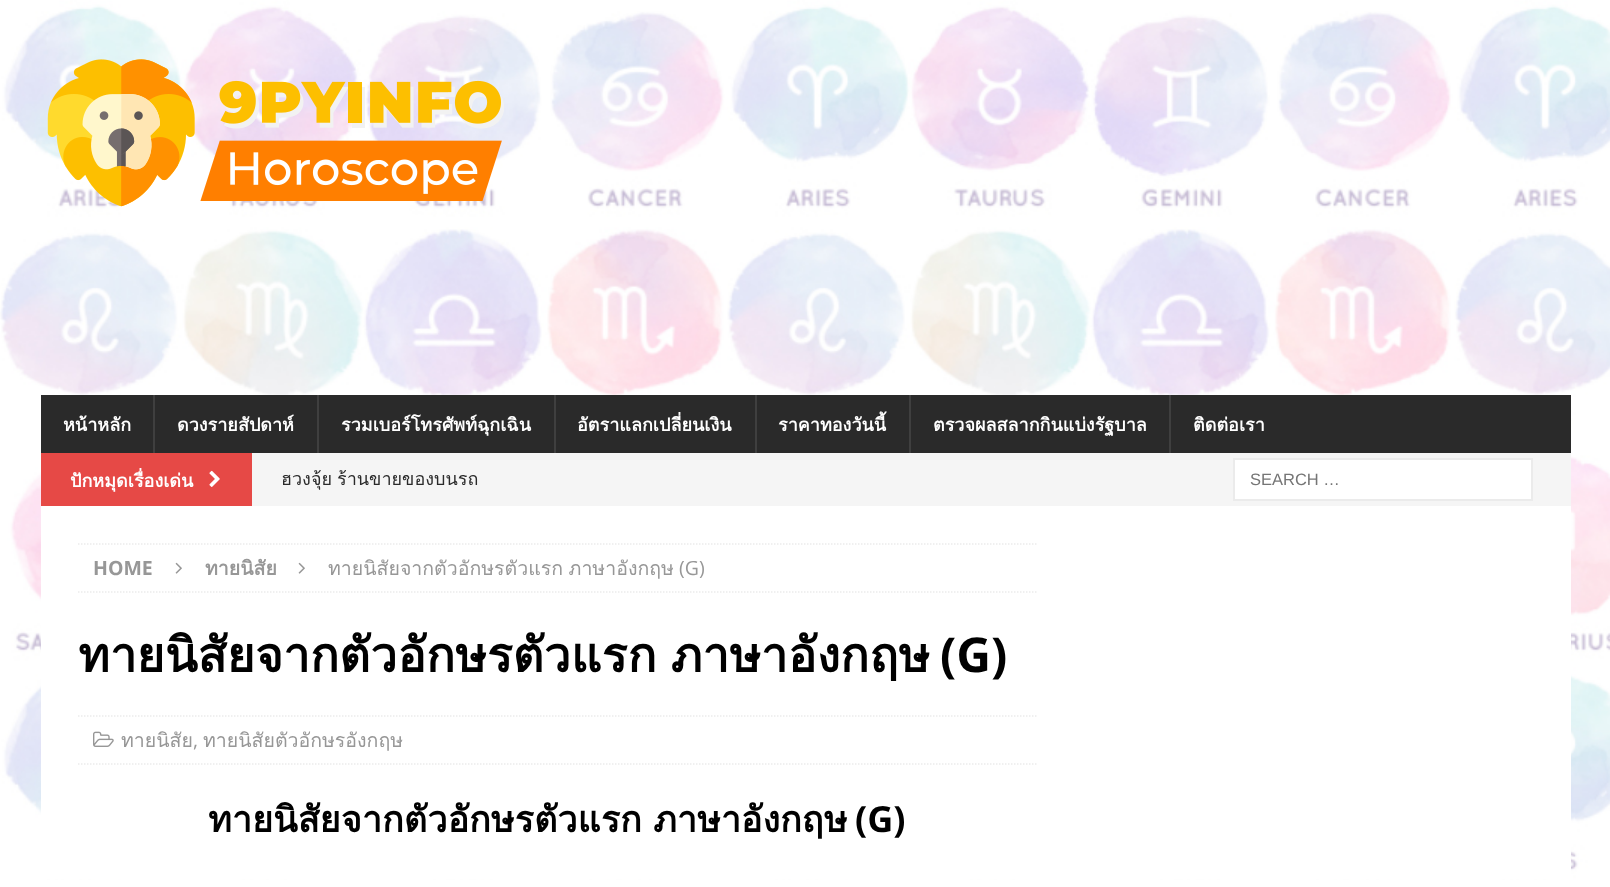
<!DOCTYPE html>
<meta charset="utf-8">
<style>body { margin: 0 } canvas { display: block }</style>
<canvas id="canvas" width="1610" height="887"></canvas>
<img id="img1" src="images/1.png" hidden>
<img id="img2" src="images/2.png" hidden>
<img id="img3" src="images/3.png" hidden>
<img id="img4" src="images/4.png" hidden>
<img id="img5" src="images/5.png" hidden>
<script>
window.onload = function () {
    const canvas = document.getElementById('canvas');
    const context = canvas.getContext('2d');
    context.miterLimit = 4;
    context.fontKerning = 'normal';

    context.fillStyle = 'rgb(255, 255, 255)';
    context.fillRect(0, 0, 1610, 887);
    context.drawImage(document.getElementById('img1'), 0, 0, 1610, 887);
    context.drawImage(document.getElementById('img2'), 47, 59, 457, 148);
    context.fillStyle = 'rgb(42, 42, 42)';
    context.fillRect(41, 395, 1530, 58);
    context.fillStyle = 'rgb(63, 63, 63)';
    context.fillRect(153, 395, 2, 58);
    context.fillRect(317, 395, 2, 58);
    context.fillRect(554, 395, 2, 58);
    context.fillRect(755, 395, 2, 58);
    context.fillRect(909, 395, 2, 58);
    context.fillRect(1169, 395, 2, 58);
    context.fillStyle = 'rgb(245, 245, 245)';
    context.fillRect(252, 453, 1319, 53);
    context.fillStyle = 'rgb(230, 73, 70)';
    context.fillRect(41, 453, 211, 53);
    context.drawImage(document.getElementById('img3'), 209, 470, 11, 17);
    context.fillStyle = 'rgb(255, 255, 255)';
    context.beginPath();
    context.rect(1234, 459, 298, 41);
    context.fill();
    context.strokeStyle = 'rgb(235, 235, 235)';
    context.lineWidth = 2;
    context.stroke();
    context.fillRect(41, 506, 1530, 373);
    context.beginPath();
    context.moveTo(78, 544);
    context.lineTo(1036.5, 544);
    context.lineWidth = 1.5;
    context.setLineDash([1.5, 1.5]);
    context.stroke();
    context.beginPath();
    context.moveTo(78, 592);
    context.lineTo(1036.5, 592);
    context.stroke();
    context.drawImage(document.getElementById('img4'), 175, 562, 7, 12);
    context.drawImage(document.getElementById('img4'), 298, 562, 7, 12);
    context.beginPath();
    context.moveTo(78, 716);
    context.lineTo(1036.5, 716);
    context.stroke();
    context.beginPath();
    context.moveTo(78, 764);
    context.lineTo(1036.5, 764);
    context.stroke();
    context.drawImage(document.getElementById('img5'), 93, 731, 21, 16);
    context.font = 'bold 18px Loma';
    context.fillText('หน้าหลัก', 63, 431);
    context.fillText('ดวงรายสัปดาห์', 177, 431);
    context.fillText('รวมเบอร์โทรศัพท์ฉุกเฉิน', 341, 431);
    context.fillText('อัตราแลกเปลี่ยนเงิน', 577, 431);
    context.fillText('ราคาทองวันนี้', 778, 431);
    context.fillText('ตรวจผลสลากกินแบ่งรัฐบาล', 933, 431);
    context.fillText('ติดต่อเรา', 1193, 431);
    context.fillText('ปักหมุดเรื่องเด่น', 70, 487);
    context.wordSpacing = '-1px';
    context.font = '18px Loma';
    context.fillStyle = 'rgb(42, 42, 42)';
    context.fillText('ฮวงจุ้ย ร้านขายของบนรถ', 281, 485);
    context.wordSpacing = '0px';
    context.font = '16.5px Liberation Sans';
    context.fillStyle = 'rgb(117, 117, 117)';
    context.fillText('SEARCH …', 1250, 485);
    context.font = 'bold 19.5px Open Sans';
    context.fillStyle = 'rgb(151, 151, 151)';
    context.fillText('HOME', 93, 575);
    context.font = 'bold 19.5px Loma';
    context.fillText('ทายนิสัย', 205, 575);
    context.wordSpacing = '-1px';
    context.font = '19.5px Loma';
    context.fillText('ทายนิสัยจากตัวอักษรตัวแรก ภาษาอังกฤษ', 328, 575);
    context.wordSpacing = '0px';
    context.font = '19.5px Open Sans';
    context.fillText('(G)', 679, 575);
    context.wordSpacing = '-2px';
    context.font = 'bold 48px Loma';
    context.fillStyle = 'rgb(0, 0, 0)';
    context.fillText('ทายนิสัยจากตัวอักษรตัวแรก ภาษาอังกฤษ', 78, 672);
    context.wordSpacing = '0px';
    context.font = 'bold 48px Open Sans';
    context.fillText('(G)', 940, 672);
    context.font = '19.5px Loma';
    context.fillStyle = 'rgb(151, 151, 151)';
    context.fillText('ทายนิสัย', 121, 747);
    context.font = '19.5px Open Sans';
    context.fillText(',', 193, 747);
    context.font = '19.5px Loma';
    context.fillText('ทายนิสัยตัวอักษรอังกฤษ', 203, 747);
    context.wordSpacing = '-1px';
    context.font = 'bold 36px Loma';
    context.fillStyle = 'rgb(0, 0, 0)';
    context.fillText('ทายนิสัยจากตัวอักษรตัวแรก ภาษาอังกฤษ', 208, 832);
    context.wordSpacing = '0px';
    context.font = 'bold 36px Open Sans';
    context.fillText('(G)', 855, 832);
};
</script>
